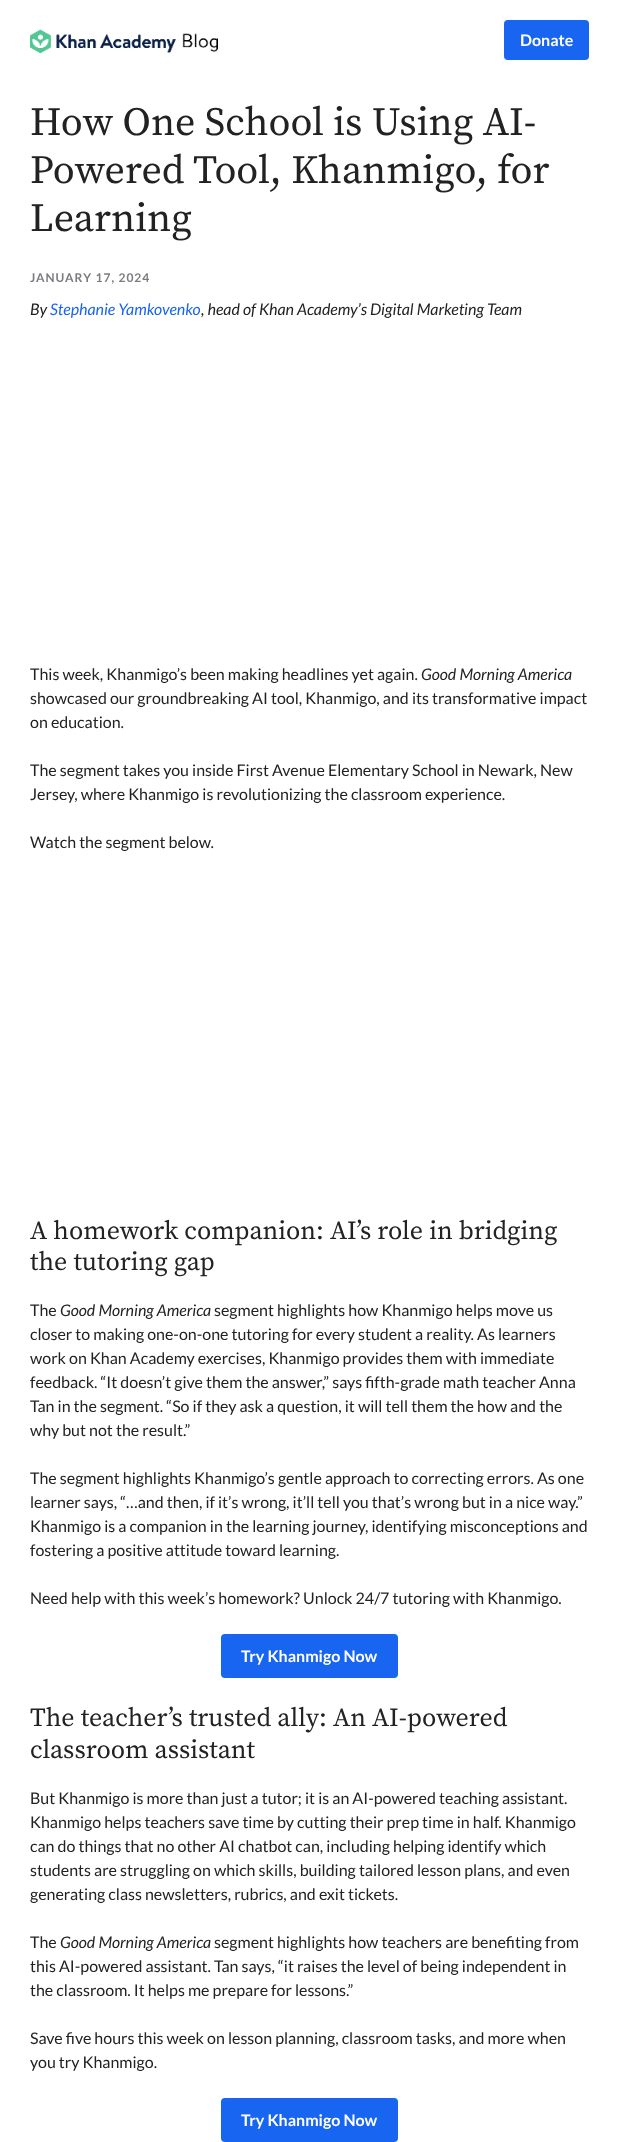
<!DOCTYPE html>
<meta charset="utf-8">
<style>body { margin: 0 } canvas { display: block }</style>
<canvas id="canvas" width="619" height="2142"></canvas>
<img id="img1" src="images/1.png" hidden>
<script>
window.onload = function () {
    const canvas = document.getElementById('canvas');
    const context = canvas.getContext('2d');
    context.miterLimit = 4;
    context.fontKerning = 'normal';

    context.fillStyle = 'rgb(255, 255, 255)';
    context.fillRect(0, 0, 619, 2142);
    context.drawImage(document.getElementById('img1'), 30, 29, 188, 25);
    context.fillStyle = 'rgb(24, 101, 242)';
    context.beginPath();
    context.roundRect(504, 20, 85, 40, 4);
    context.fill();
    context.beginPath();
    context.roundRect(221, 1634, 177, 44, 4);
    context.fill();
    context.beginPath();
    context.roundRect(221, 2098, 177, 44, 4);
    context.fill();
    context.font = 'bold 16px Lato';
    context.fillStyle = 'rgb(255, 255, 255)';
    context.fillText('Donate', 520, 46);
    context.font = '40px Source Serif Pro';
    context.fillStyle = 'rgb(34, 34, 34)';
    context.fillText('How One School is Using AI-', 30, 135);
    context.fillText('Powered Tool, Khanmigo, for', 30, 183);
    context.fillText('Learning', 30, 231);
    context.letterSpacing = '1px';
    context.font = 'bold 12px Lato';
    context.fillStyle = 'rgb(122, 124, 128)';
    context.fillText('JANUARY 17, 2024', 30, 282);
    context.letterSpacing = '0px';
    context.font = 'italic 16px Lato';
    context.fillStyle = 'rgb(34, 34, 34)';
    context.fillText('By', 30, 315);
    context.fillStyle = 'rgb(24, 101, 242)';
    context.fillText('Stephanie Yamkovenko', 50, 315);
    context.fillStyle = 'rgb(34, 34, 34)';
    context.fillText(', head of Khan Academy’s Digital Marketing Team', 201, 315);
    context.font = '16px Lato';
    context.fillText('This week, Khanmigo’s been making headlines yet again.', 30, 680);
    context.font = 'italic 16px Lato';
    context.fillText('Good Morning America', 421, 680);
    context.font = '16px Lato';
    context.fillText('showcased our groundbreaking AI tool, Khanmigo, and its transformative impact', 30, 704);
    context.fillText('on education.', 30, 728);
    context.fillText('The segment takes you inside First Avenue Elementary School in Newark, New', 30, 776);
    context.fillText('Jersey, where Khanmigo is revolutionizing the classroom experience.', 30, 800);
    context.fillText('Watch the segment below.', 30, 848);
    context.font = '26px Source Serif Pro';
    context.fillText('A homework companion: AI’s role in bridging', 30, 1239);
    context.fillText('the tutoring gap', 30, 1270);
    context.font = '16px Lato';
    context.fillText('The', 30, 1316);
    context.font = 'italic 16px Lato';
    context.fillText('Good Morning America', 60, 1316);
    context.font = '16px Lato';
    context.fillText('segment highlights how Khanmigo helps move us', 214, 1316);
    context.fillText('closer to making one-on-one tutoring for every student a reality. As learners', 30, 1340);
    context.fillText('work on Khan Academy exercises, Khanmigo provides them with immediate', 30, 1364);
    context.fillText('feedback. “It doesn’t give them the answer,” says fifth-grade math teacher Anna', 30, 1388);
    context.fillText('Tan in the segment. “So if they ask a question, it will tell them the how and the', 30, 1412);
    context.fillText('why but not the result.”', 30, 1436);
    context.fillText('The segment highlights Khanmigo’s gentle approach to correcting errors. As one', 30, 1484);
    context.fillText('learner says, “…and then, if it’s wrong, it’ll tell you that’s wrong but in a nice way.”', 30, 1508);
    context.fillText('Khanmigo is a companion in the learning journey, identifying misconceptions and', 30, 1532);
    context.fillText('fostering a positive attitude toward learning.', 30, 1556);
    context.fillText('Need help with this week’s homework? Unlock 24/7 tutoring with Khanmigo.', 30, 1604);
    context.font = 'bold 16px Lato';
    context.fillStyle = 'rgb(255, 255, 255)';
    context.fillText('Try Khanmigo Now', 241, 1662);
    context.font = '26px Source Serif Pro';
    context.fillStyle = 'rgb(34, 34, 34)';
    context.fillText('The teacher’s trusted ally: An AI-powered', 30, 1726);
    context.fillText('classroom assistant', 30, 1758);
    context.font = '16px Lato';
    context.fillText('But Khanmigo is more than just a tutor; it is an AI-powered teaching assistant.', 30, 1804);
    context.fillText('Khanmigo helps teachers save time by cutting their prep time in half. Khanmigo', 30, 1828);
    context.fillText('can do things that no other AI chatbot can, including helping identify which', 30, 1852);
    context.fillText('students are struggling on which skills, building tailored lesson plans, and even', 30, 1876);
    context.fillText('generating class newsletters, rubrics, and exit tickets.', 30, 1900);
    context.fillText('The', 30, 1948);
    context.font = 'italic 16px Lato';
    context.fillText('Good Morning America', 60, 1948);
    context.font = '16px Lato';
    context.fillText('segment highlights how teachers are benefiting from', 214, 1948);
    context.fillText('this AI-powered assistant. Tan says, “it raises the level of being independent in', 30, 1972);
    context.fillText('the classroom. It helps me prepare for lessons.”', 30, 1996);
    context.fillText('Save five hours this week on lesson planning, classroom tasks, and more when', 30, 2044);
    context.fillText('you try Khanmigo.', 30, 2068);
    context.font = 'bold 16px Lato';
    context.fillStyle = 'rgb(255, 255, 255)';
    context.fillText('Try Khanmigo Now', 241, 2126);
};
</script>
